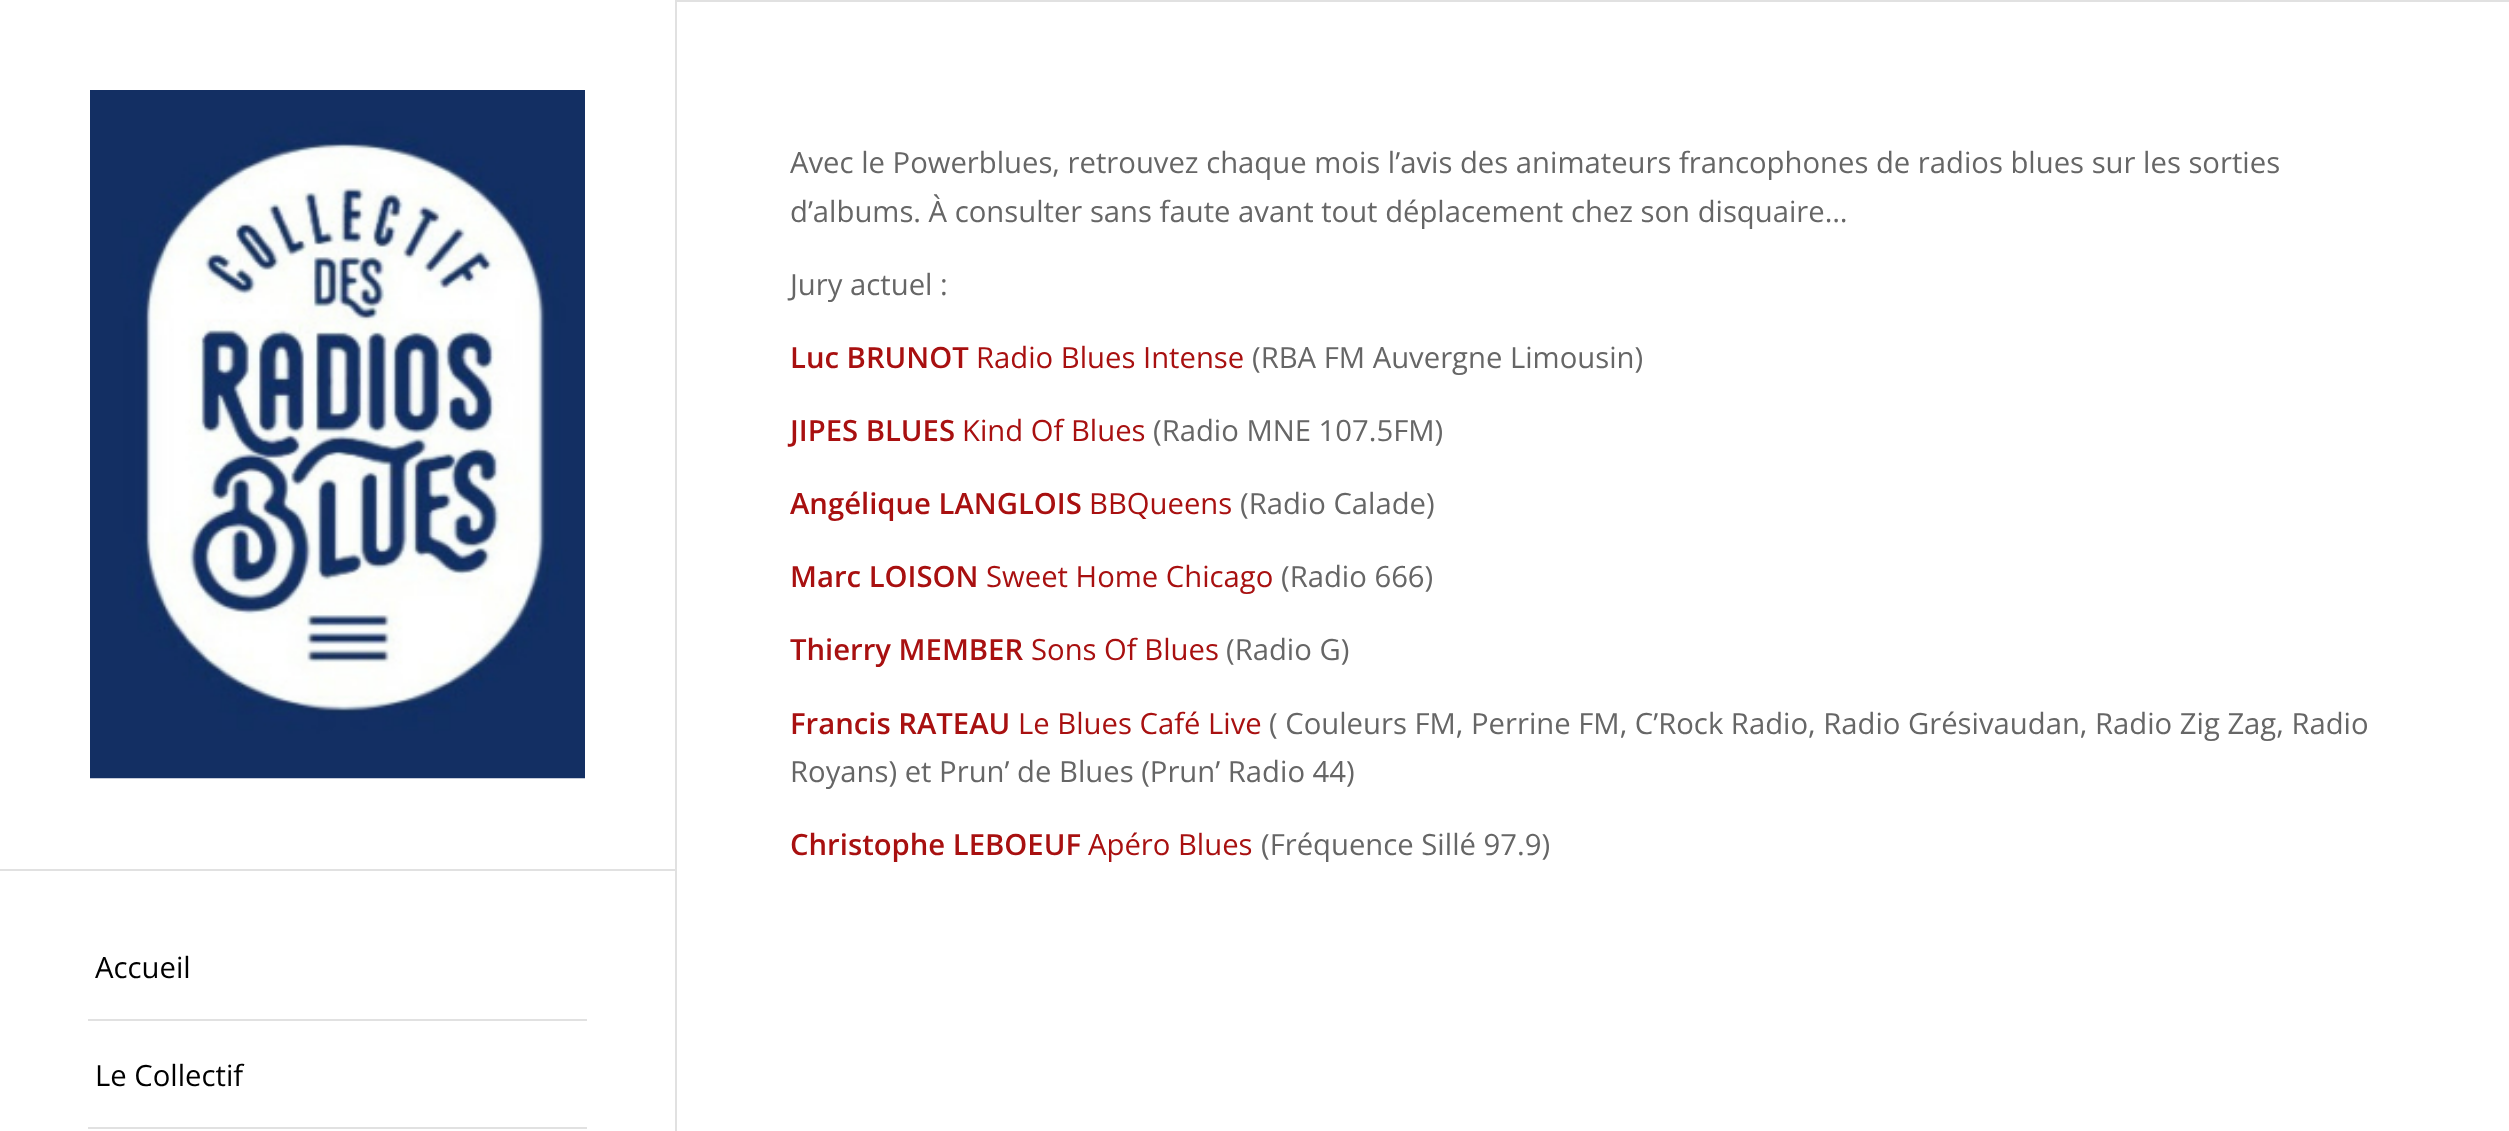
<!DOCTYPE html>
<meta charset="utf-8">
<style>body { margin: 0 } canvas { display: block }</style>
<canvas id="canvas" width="2509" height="1131"></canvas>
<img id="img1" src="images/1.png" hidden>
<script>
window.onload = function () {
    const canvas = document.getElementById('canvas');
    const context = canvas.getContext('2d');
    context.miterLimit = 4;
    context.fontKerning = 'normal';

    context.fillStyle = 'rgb(255, 255, 255)';
    context.fillRect(0, 0, 2509, 1131);
    context.fillStyle = 'rgb(225, 225, 225)';
    context.fillRect(675, 0, 2, 1131);
    context.fillRect(677, 0, 1832, 2);
    context.fillRect(0, 869, 675, 2);
    context.drawImage(document.getElementById('img1'), 90, 90, 495, 689);
    context.fillRect(88, 1019, 499, 2);
    context.fillRect(88, 1127, 499, 2);
    context.font = '29.25px Open Sans';
    context.fillStyle = 'rgb(102, 102, 102)';
    context.fillText('Avec le Powerblues, retrouvez chaque mois l’avis des animateurs francophones de radios blues sur les sorties', 790, 173);
    context.fillText('d’albums. À consulter sans faute avant tout déplacement chez son disquaire…', 790, 222);
    context.fillText('Jury actuel :', 790, 295);
    context.font = '600 29.25px Open Sans';
    context.fillStyle = 'rgb(168, 16, 16)';
    context.fillText('Luc BRUNOT', 790, 368);
    context.font = '29.25px Open Sans';
    context.fillText('Radio Blues Intense', 976, 368);
    context.fillStyle = 'rgb(102, 102, 102)';
    context.fillText('(RBA FM Auvergne Limousin)', 1252, 368);
    context.font = '600 29.25px Open Sans';
    context.fillStyle = 'rgb(168, 16, 16)';
    context.fillText('JIPES BLUES', 790, 441);
    context.font = '29.25px Open Sans';
    context.fillText('Kind Of Blues', 962, 441);
    context.fillStyle = 'rgb(102, 102, 102)';
    context.fillText('(Radio MNE 107.5FM)', 1153, 441);
    context.font = '600 29.25px Open Sans';
    context.fillStyle = 'rgb(168, 16, 16)';
    context.fillText('Angélique LANGLOIS', 790, 514);
    context.font = '29.25px Open Sans';
    context.fillText('BBQueens', 1089, 514);
    context.fillStyle = 'rgb(102, 102, 102)';
    context.fillText('(Radio Calade)', 1240, 514);
    context.font = '600 29.25px Open Sans';
    context.fillStyle = 'rgb(168, 16, 16)';
    context.fillText('Marc LOISON', 790, 587);
    context.font = '29.25px Open Sans';
    context.fillText('Sweet Home Chicago', 986, 587);
    context.fillStyle = 'rgb(102, 102, 102)';
    context.fillText('(Radio 666)', 1281, 587);
    context.font = '600 29.25px Open Sans';
    context.fillStyle = 'rgb(168, 16, 16)';
    context.fillText('Thierry MEMBER', 790, 660);
    context.font = '29.25px Open Sans';
    context.fillText('Sons Of Blues', 1031, 660);
    context.fillStyle = 'rgb(102, 102, 102)';
    context.fillText('(Radio G)', 1226, 660);
    context.font = '600 29.25px Open Sans';
    context.fillStyle = 'rgb(168, 16, 16)';
    context.fillText('Francis RATEAU', 790, 734);
    context.font = '29.25px Open Sans';
    context.fillText('Le Blues Café Live', 1018, 734);
    context.fillStyle = 'rgb(102, 102, 102)';
    context.fillText('( Couleurs FM, Perrine FM, C’Rock Radio, Radio Grésivaudan, Radio Zig Zag, Radio', 1269, 734);
    context.fillText('Royans) et Prun’ de Blues (Prun’ Radio 44)', 790, 782);
    context.font = '600 29.25px Open Sans';
    context.fillStyle = 'rgb(168, 16, 16)';
    context.fillText('Christophe LEBOEUF', 790, 855);
    context.font = '29.25px Open Sans';
    context.fillText('Apéro Blues', 1088, 855);
    context.fillStyle = 'rgb(102, 102, 102)';
    context.fillText('(Fréquence Sillé 97.9)', 1261, 855);
    context.fillStyle = 'rgb(0, 0, 0)';
    context.fillText('Accueil', 95, 978);
    context.fillText('Le Collectif', 95, 1086);
};
</script>
